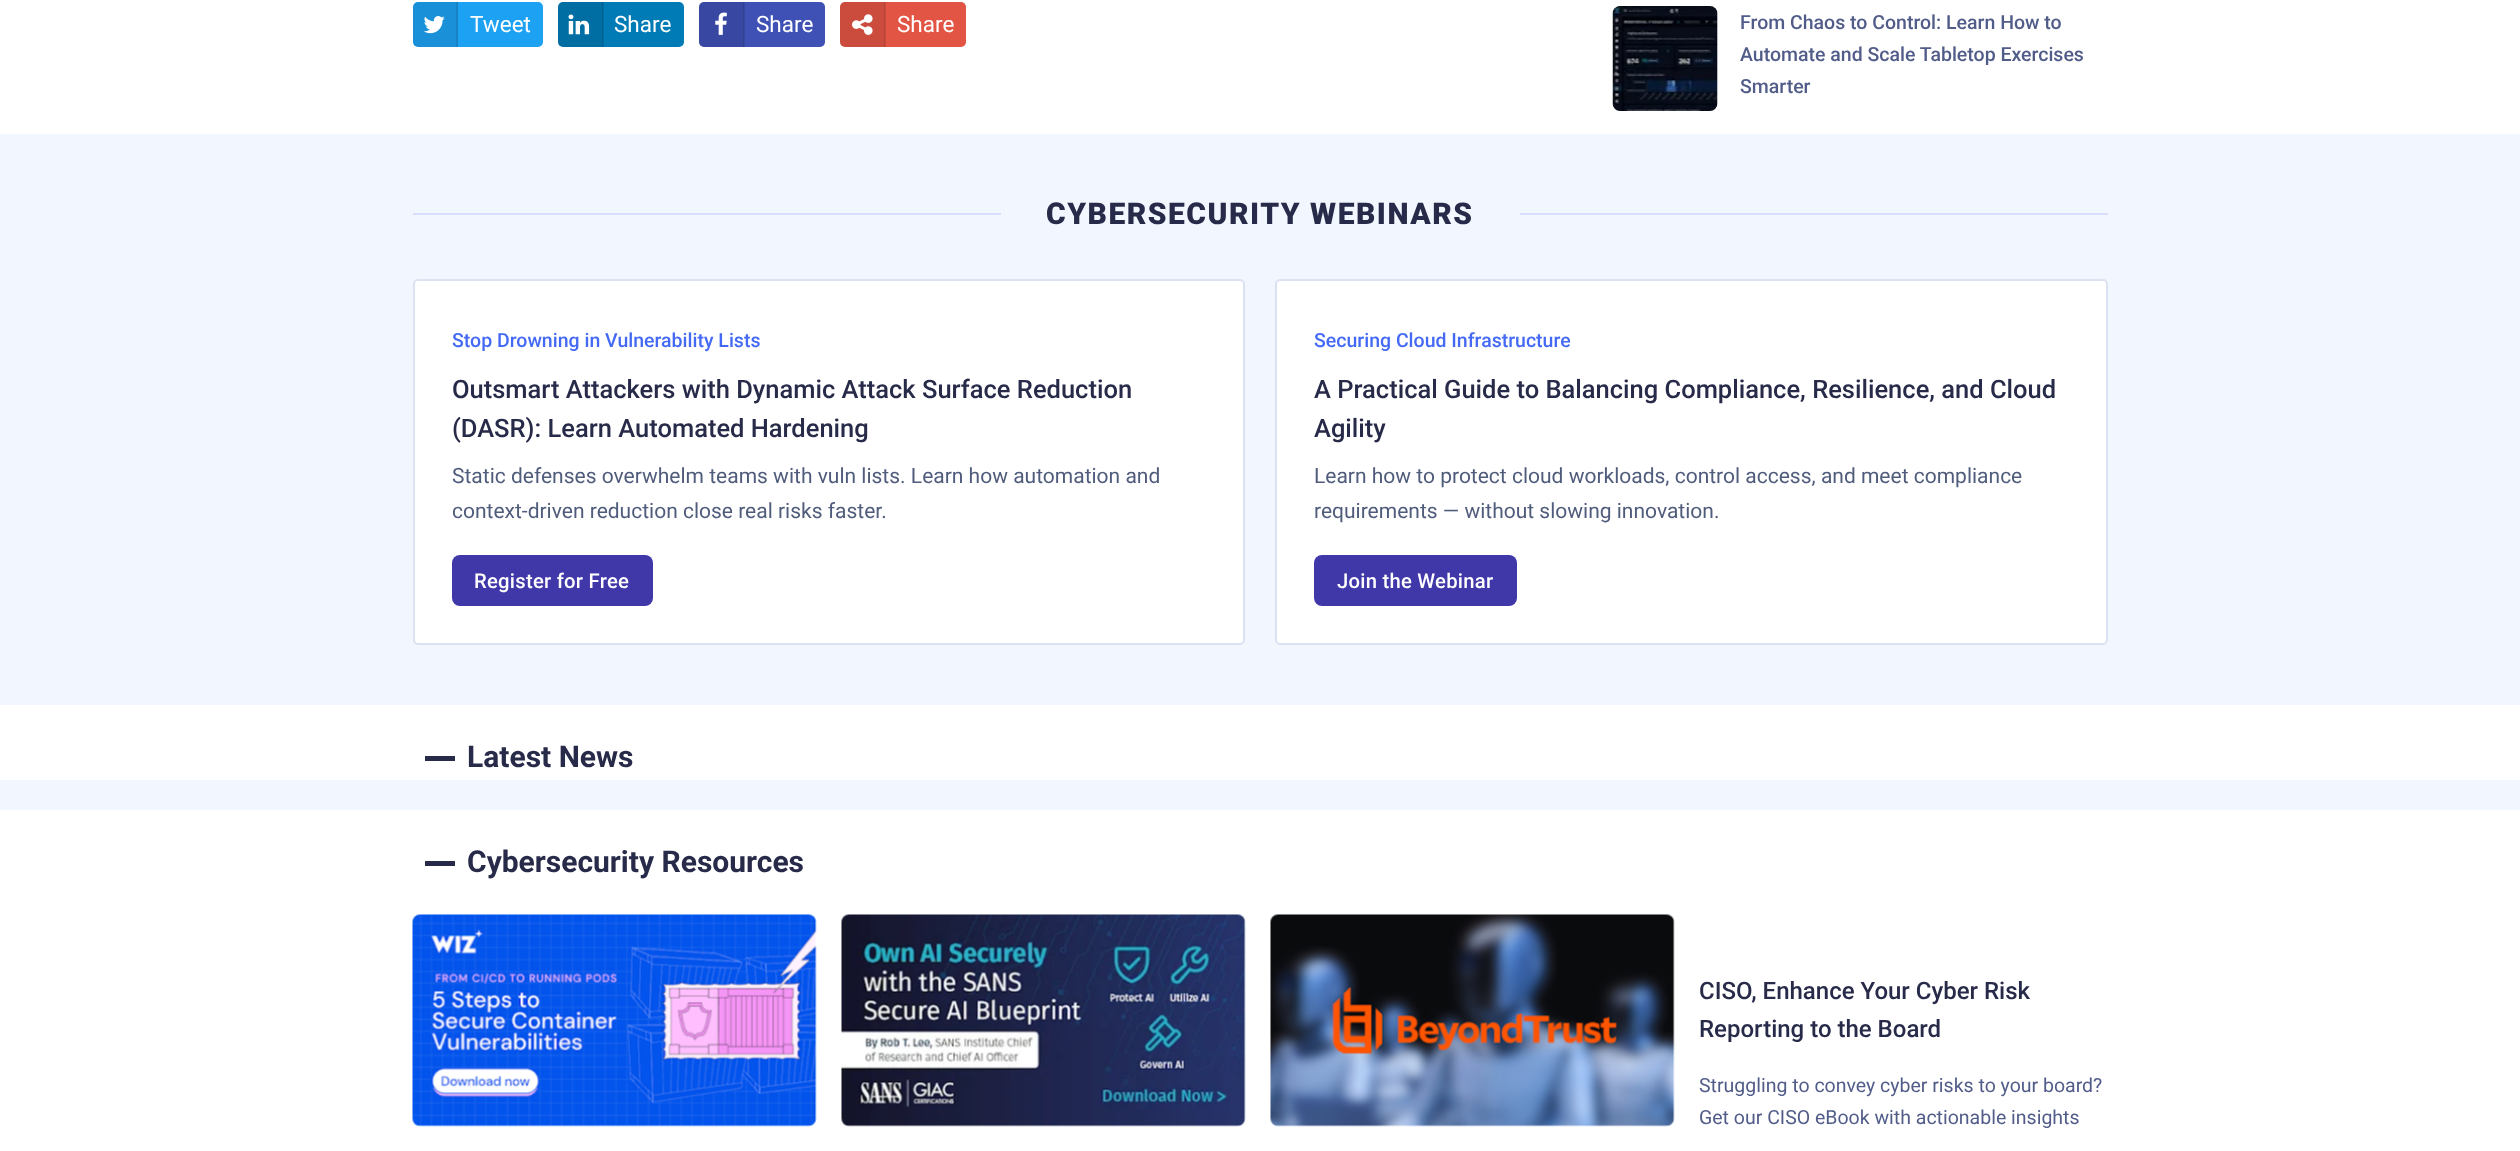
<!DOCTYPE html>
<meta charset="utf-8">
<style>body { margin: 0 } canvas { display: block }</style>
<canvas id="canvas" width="2520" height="1151"></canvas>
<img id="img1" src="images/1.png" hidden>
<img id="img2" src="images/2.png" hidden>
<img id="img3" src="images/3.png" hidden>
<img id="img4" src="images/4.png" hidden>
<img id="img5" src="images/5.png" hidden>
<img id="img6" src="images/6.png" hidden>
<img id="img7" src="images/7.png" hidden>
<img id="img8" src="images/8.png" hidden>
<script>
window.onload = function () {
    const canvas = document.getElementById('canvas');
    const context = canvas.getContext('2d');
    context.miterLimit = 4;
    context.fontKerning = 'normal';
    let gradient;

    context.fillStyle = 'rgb(242, 246, 255)';
    context.fillRect(0, 0, 2520, 1151);
    context.fillStyle = 'rgb(255, 255, 255)';
    context.fillRect(0, 0, 2520, 134);
    context.fillStyle = 'rgb(29, 161, 242)';
    context.beginPath();
    context.roundRect(413, 2, 130, 45, 5);
    context.fill();
    context.fillStyle = 'rgba(0, 0, 0, 0.1)';
    context.beginPath();
    context.roundRect(413, 2, 45, 45, [5, 0, 0, 5]);
    context.fill();
    context.fillStyle = 'rgb(23, 130, 196)';
    context.fillRect(456, 2, 2, 45);
    context.drawImage(document.getElementById('img1'), 423, 16, 22, 18);
    context.fillStyle = 'rgb(0, 123, 182)';
    context.beginPath();
    context.roundRect(558, 2, 126, 45, 5);
    context.fill();
    context.fillStyle = 'rgba(0, 0, 0, 0.1)';
    context.beginPath();
    context.roundRect(558, 2, 45, 45, [5, 0, 0, 5]);
    context.fill();
    context.fillRect(602, 2, 2, 45);
    context.drawImage(document.getElementById('img2'), 568, 14, 22, 21);
    context.fillStyle = 'rgb(63, 81, 181)';
    context.beginPath();
    context.roundRect(699, 2, 126, 45, 5);
    context.fill();
    context.fillStyle = 'rgba(0, 0, 0, 0.1)';
    context.beginPath();
    context.roundRect(699, 2, 45, 45, [5, 0, 0, 5]);
    context.fill();
    context.fillRect(743, 2, 2, 45);
    context.drawImage(document.getElementById('img3'), 715, 12, 12, 23);
    context.fillStyle = 'rgb(226, 85, 68)';
    context.beginPath();
    context.roundRect(840, 2, 126, 45, 5);
    context.fill();
    context.fillStyle = 'rgba(0, 0, 0, 0.1)';
    context.beginPath();
    context.roundRect(840, 2, 45, 45, [5, 0, 0, 5]);
    context.fill();
    context.fillRect(884, 2, 2, 45);
    context.drawImage(document.getElementById('img4'), 852, 14, 21, 21);
    gradient = context.createLinearGradient(1665, 6, 1665, 111);
    gradient.addColorStop(0.66, 'rgb(242, 242, 242)');
    gradient.addColorStop(1, 'rgb(255, 255, 255)');
    context.fillStyle = gradient;
    context.beginPath();
    context.roundRect(1613, 6, 105, 105, 8);
    context.fill();
    context.drawImage(document.getElementById('img5'), 1612, 6, 106, 105);
    context.fillStyle = 'rgb(217, 222, 255)';
    context.fillRect(413, 213, 588, 2);
    context.fillRect(1520, 213, 588, 2);
    context.fillStyle = 'rgb(255, 255, 255)';
    context.beginPath();
    context.roundRect(414, 280, 830, 364, 4);
    context.fill();
    context.strokeStyle = 'rgb(220, 226, 241)';
    context.lineWidth = 2;
    context.stroke();
    context.fillStyle = 'rgb(64, 55, 168)';
    context.beginPath();
    context.roundRect(452, 555, 201, 51, 8);
    context.fill();
    context.fillStyle = 'rgb(255, 255, 255)';
    context.beginPath();
    context.roundRect(1276, 280, 831, 364, 4);
    context.fill();
    context.stroke();
    context.fillStyle = 'rgb(64, 55, 168)';
    context.beginPath();
    context.roundRect(1314, 555, 203, 51, 8);
    context.fill();
    context.fillStyle = 'rgb(255, 255, 255)';
    context.fillRect(0, 705, 2520, 75);
    context.fillStyle = 'rgb(39, 42, 72)';
    context.fillRect(425, 756, 30, 5);
    context.fillStyle = 'rgb(255, 255, 255)';
    context.fillRect(0, 810, 2520, 341);
    context.fillStyle = 'rgb(39, 42, 72)';
    context.fillRect(425, 861, 30, 5);
    context.drawImage(document.getElementById('img6'), 412, 914, 405, 213);
    context.drawImage(document.getElementById('img7'), 841, 914, 405, 213);
    context.drawImage(document.getElementById('img8'), 1270, 914, 405, 213);
    context.font = '22.5px Roboto';
    context.fillStyle = 'rgb(255, 255, 255)';
    context.fillText('Tweet', 470, 32);
    context.fillText('Share', 614, 32);
    context.fillText('Share', 756, 32);
    context.fillText('Share', 897, 32);
    context.font = '500 19.5px Roboto';
    context.fillStyle = 'rgb(81, 92, 137)';
    context.fillText('From Chaos to Control: Learn How to', 1740, 29);
    context.fillText('Automate and Scale Tabletop Exercises', 1740, 61);
    context.fillText('Smarter', 1740, 93);
    context.letterSpacing = '1.5px';
    context.font = '900 30px Roboto';
    context.fillStyle = 'rgb(39, 42, 72)';
    context.fillText('CYBERSECURITY WEBINARS', 1046, 224);
    context.letterSpacing = '0px';
    context.font = '500 19.5px Roboto';
    context.fillStyle = 'rgb(68, 105, 245)';
    context.fillText('Stop Drowning in Vulnerability Lists', 452, 347);
    context.font = '500 25.5px Roboto';
    context.fillStyle = 'rgb(39, 42, 72)';
    context.fillText('Outsmart Attackers with Dynamic Attack Surface Reduction', 452, 398);
    context.fillText('(DASR): Learn Automated Hardening', 452, 437);
    context.font = '21px Roboto';
    context.fillStyle = 'rgb(80, 92, 124)';
    context.fillText('Static defenses overwhelm teams with vuln lists. Learn how automation and', 452, 483);
    context.fillText('context-driven reduction close real risks faster.', 452, 518);
    context.letterSpacing = '0.25px';
    context.font = '500 20.25px Roboto';
    context.fillStyle = 'rgb(255, 255, 255)';
    context.fillText('Register for Free', 474, 588);
    context.letterSpacing = '0px';
    context.font = '500 19.5px Roboto';
    context.fillStyle = 'rgb(68, 105, 245)';
    context.fillText('Securing Cloud Infrastructure', 1314, 347);
    context.font = '500 25.5px Roboto';
    context.fillStyle = 'rgb(39, 42, 72)';
    context.fillText('A Practical Guide to Balancing Compliance, Resilience, and Cloud', 1314, 398);
    context.fillText('Agility', 1314, 437);
    context.font = '21px Roboto';
    context.fillStyle = 'rgb(80, 92, 124)';
    context.fillText('Learn how to protect cloud workloads, control access, and meet compliance', 1314, 483);
    context.fillText('requirements — without slowing innovation.', 1314, 518);
    context.letterSpacing = '0.25px';
    context.font = '500 20.25px Roboto';
    context.fillStyle = 'rgb(255, 255, 255)';
    context.fillText('Join the Webinar', 1337, 588);
    context.letterSpacing = '0px';
    context.font = 'bold 30px Roboto';
    context.fillStyle = 'rgb(39, 42, 72)';
    context.fillText('Latest News', 467, 767);
    context.fillText('Cybersecurity Resources', 467, 872);
    context.font = '500 24px Roboto';
    context.fillText('CISO, Enhance Your Cyber Risk', 1699, 999);
    context.fillText('Reporting to the Board', 1699, 1037);
    context.font = '19.5px Roboto';
    context.fillStyle = 'rgb(81, 92, 137)';
    context.fillText('Struggling to convey cyber risks to your board?', 1699, 1092);
    context.fillText('Get our CISO eBook with actionable insights', 1699, 1124);
};
</script>
